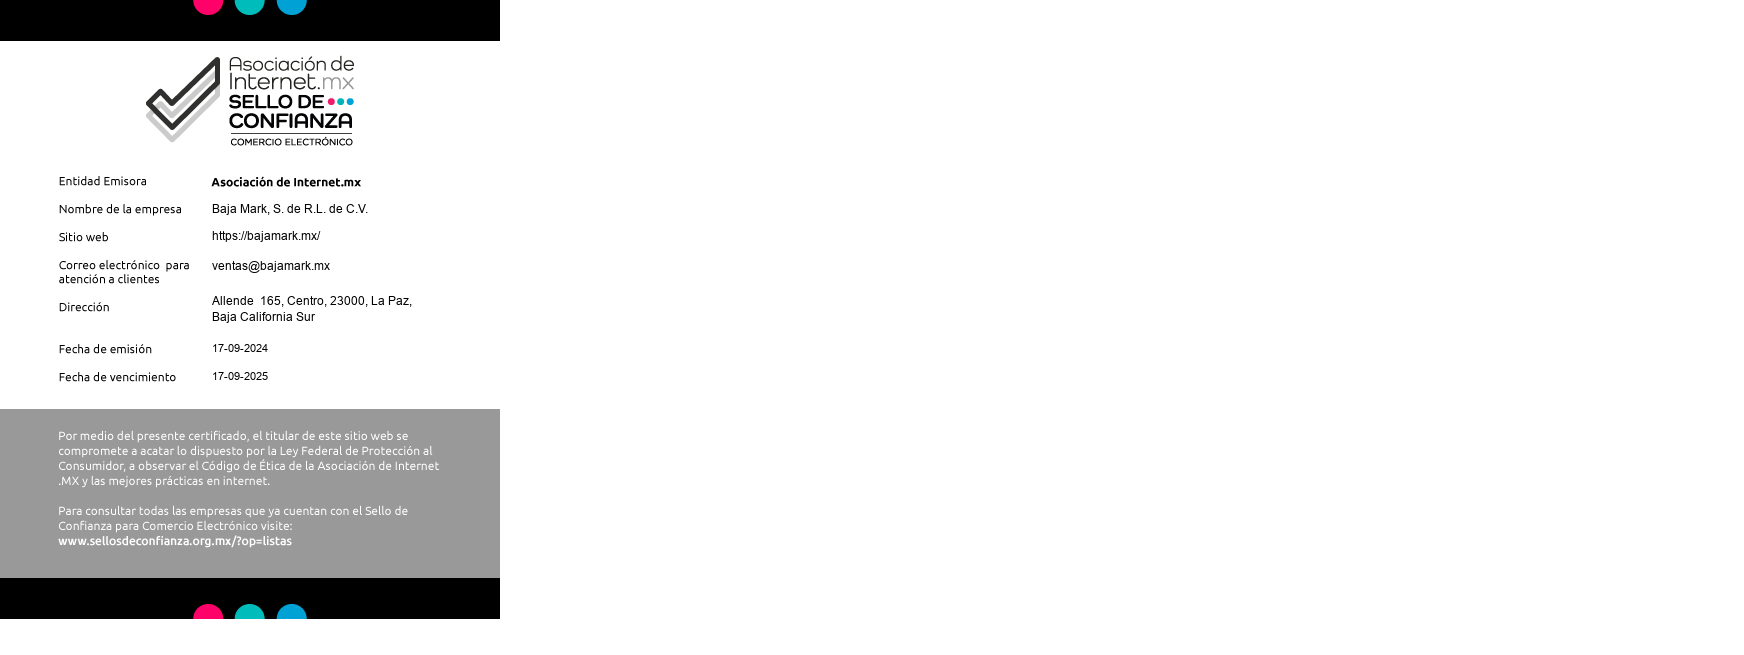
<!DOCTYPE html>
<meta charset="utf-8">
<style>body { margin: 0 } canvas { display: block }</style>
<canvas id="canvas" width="1744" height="655"></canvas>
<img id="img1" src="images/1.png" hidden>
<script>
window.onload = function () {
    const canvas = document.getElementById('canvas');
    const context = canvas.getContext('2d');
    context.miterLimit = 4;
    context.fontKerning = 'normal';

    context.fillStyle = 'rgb(255, 255, 255)';
    context.fillRect(0, 0, 1744, 655);
    context.drawImage(document.getElementById('img1'), 0, 0, 500, 619);
};
</script>
